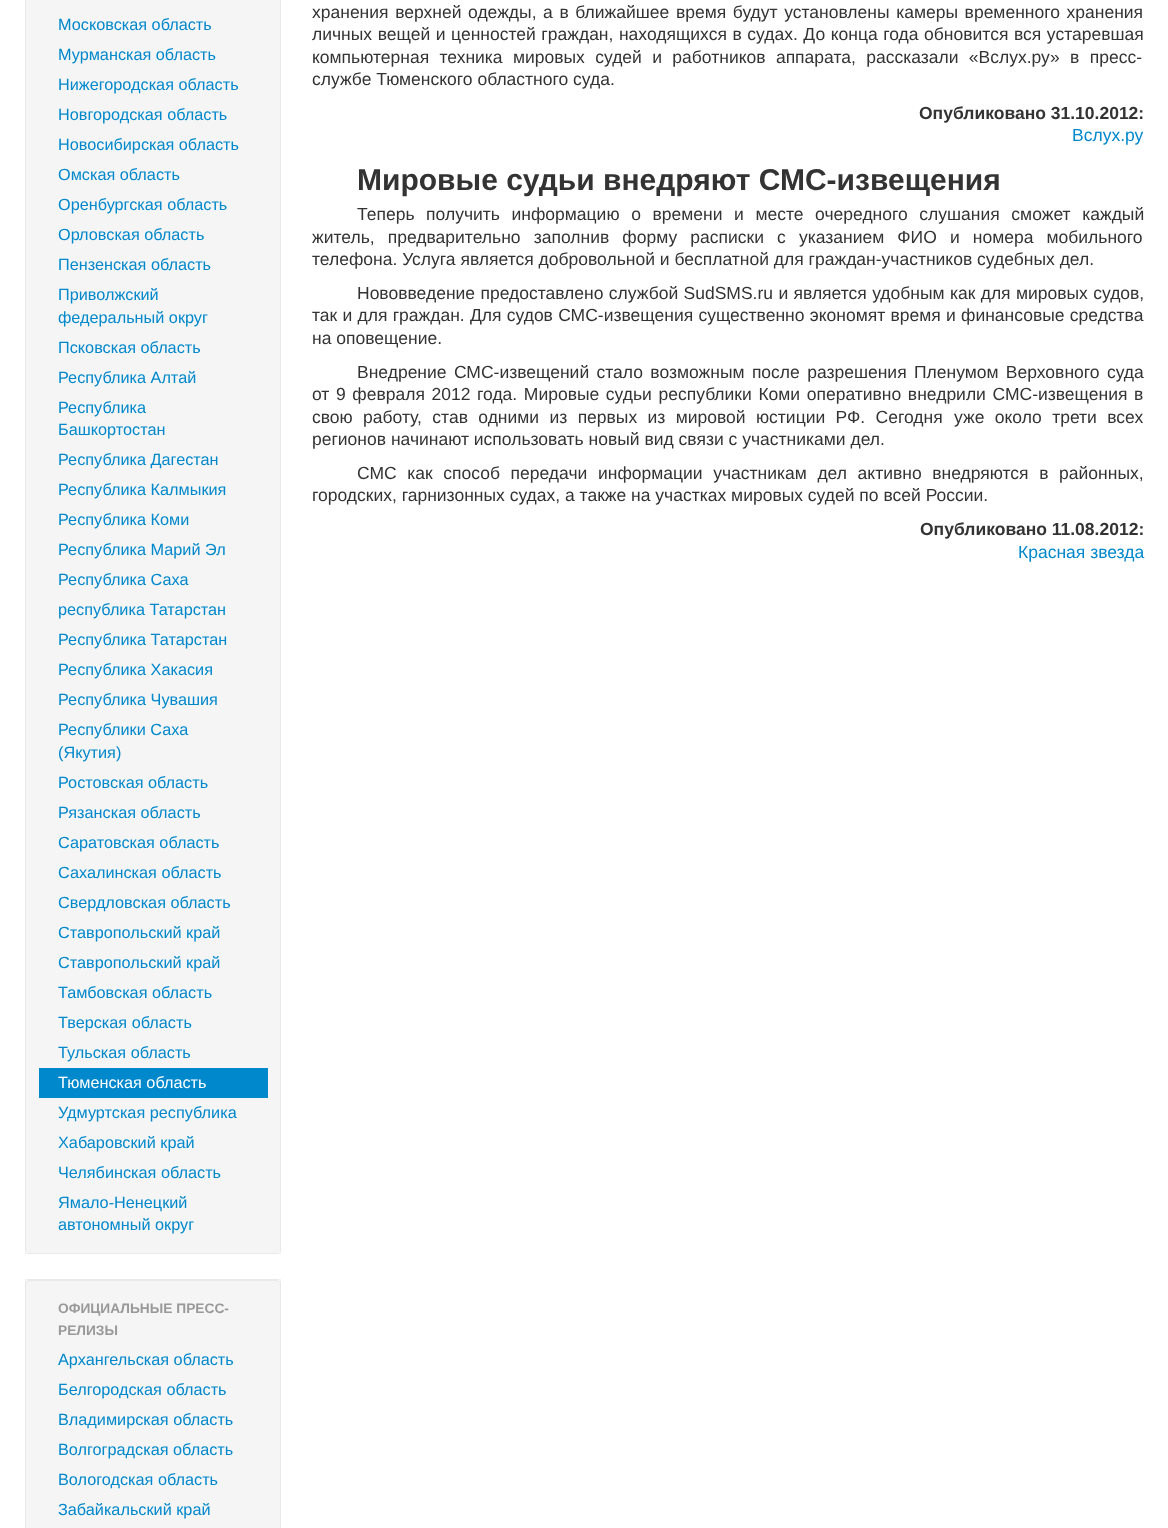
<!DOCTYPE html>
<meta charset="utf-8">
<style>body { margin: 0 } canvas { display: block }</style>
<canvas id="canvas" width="1168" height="1528"></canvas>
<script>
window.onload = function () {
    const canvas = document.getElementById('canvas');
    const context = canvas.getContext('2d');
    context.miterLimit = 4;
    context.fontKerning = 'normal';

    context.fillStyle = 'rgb(255, 255, 255)';
    context.fillRect(0, 0, 1168, 1528);
    context.fillStyle = 'rgb(245, 245, 245)';
    context.beginPath();
    context.roundRect(25, -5, 256, 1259, 5);
    context.fill();
    context.strokeStyle = 'rgba(0, 0, 0, 0.05)';
    context.strokeRect(25.5, -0.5, 255, 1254);
    context.fillStyle = 'rgb(0, 136, 204)';
    context.fillRect(39, 1068, 229, 30);
    context.fillStyle = 'rgb(245, 245, 245)';
    context.beginPath();
    context.roundRect(25, 1279, 256, 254, 5);
    context.fill();
    context.fillStyle = 'rgb(233, 233, 233)';
    context.beginPath();
    context.moveTo(30, 1281);
    context.lineTo(276, 1281);
    context.bezierCurveTo(278, 1281, 280, 1283, 280, 1285);
    context.lineTo(280, 1284);
    context.bezierCurveTo(280, 1282, 278, 1280, 276, 1280);
    context.lineTo(30, 1280);
    context.bezierCurveTo(28, 1280, 26, 1282, 26, 1284);
    context.lineTo(26, 1285);
    context.bezierCurveTo(26, 1283, 28, 1281, 30, 1281);
    context.closePath();
    context.fill();
    context.strokeRect(25.5, 1279.5, 255, 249);
    context.font = '16.25px Liberation Sans';
    context.fillStyle = 'rgb(0, 136, 204)';
    context.fillText('Московская область', 58, 30);
    context.fillText('Мурманская область', 58, 60);
    context.fillText('Нижегородская область', 58, 90);
    context.fillText('Новгородская область', 58, 120);
    context.fillText('Новосибирская область', 58, 150);
    context.fillText('Омская область', 58, 180);
    context.fillText('Оренбургская область', 58, 210);
    context.fillText('Орловская область', 58, 240);
    context.fillText('Пензенская область', 58, 270);
    context.fillText('Приволжский', 58, 300);
    context.fillText('федеральный округ', 58, 323);
    context.fillText('Псковская область', 58, 353);
    context.fillText('Республика Алтай', 58, 383);
    context.fillText('Республика', 58, 413);
    context.fillText('Башкортостан', 58, 435);
    context.fillText('Республика Дагестан', 58, 465);
    context.fillText('Республика Калмыкия', 58, 495);
    context.fillText('Республика Коми', 58, 525);
    context.fillText('Республика Марий Эл', 58, 555);
    context.fillText('Республика Саха', 58, 585);
    context.fillText('республика Татарстан', 58, 615);
    context.fillText('Республика Татарстан', 58, 645);
    context.fillText('Республика Хакасия', 58, 675);
    context.fillText('Республика Чувашия', 58, 705);
    context.fillText('Республики Саха', 58, 735);
    context.fillText('(Якутия)', 58, 758);
    context.fillText('Ростовская область', 58, 788);
    context.fillText('Рязанская область', 58, 818);
    context.fillText('Саратовская область', 58, 848);
    context.fillText('Сахалинская область', 58, 878);
    context.fillText('Свердловская область', 58, 908);
    context.fillText('Ставропольский край', 58, 938);
    context.fillText('Ставропольский край', 58, 968);
    context.fillText('Тамбовская область', 58, 998);
    context.fillText('Тверская область', 58, 1028);
    context.fillText('Тульская область', 58, 1058);
    context.fillStyle = 'rgb(255, 255, 255)';
    context.fillText('Тюменская область', 58, 1088);
    context.fillStyle = 'rgb(0, 136, 204)';
    context.fillText('Удмуртская республика', 58, 1118);
    context.fillText('Хабаровский край', 58, 1148);
    context.fillText('Челябинская область', 58, 1178);
    context.fillText('Ямало-Ненецкий', 58, 1208);
    context.fillText('автономный округ', 58, 1230);
    context.font = 'bold 13.75px Liberation Sans';
    context.fillStyle = 'rgb(153, 153, 153)';
    context.fillText('ОФИЦИАЛЬНЫЕ ПРЕСС-', 58, 1313);
    context.fillText('РЕЛИЗЫ', 58, 1335);
    context.font = '16.25px Liberation Sans';
    context.fillStyle = 'rgb(0, 136, 204)';
    context.fillText('Архангельская область', 58, 1365);
    context.fillText('Белгородская область', 58, 1395);
    context.fillText('Владимирская область', 58, 1425);
    context.fillText('Волгоградская область', 58, 1455);
    context.fillText('Вологодская область', 58, 1485);
    context.fillText('Забайкальский край', 58, 1515);
    context.wordSpacing = '1.75px';
    context.font = '17.5px Liberation Sans';
    context.fillStyle = 'rgb(51, 51, 51)';
    context.fillText('хранения верхней одежды, а в ближайшее время будут установлены камеры временного хранения', 312, 18);
    context.wordSpacing = '0.7px';
    context.fillText('личных вещей и ценностей граждан, находящихся в судах. До конца года обновится вся устаревшая', 312, 40);
    context.wordSpacing = '5.5px';
    context.fillText('компьютерная техника мировых судей и работников аппарата, рассказали «Вслух.ру» в пресс-', 312, 63);
    context.wordSpacing = '0px';
    context.fillText('службе Тюменского областного суда.', 312, 85);
    context.font = 'bold 17.5px Liberation Sans';
    context.fillText('Опубликовано 31.10.2012:', 919, 119);
    context.font = '17.5px Liberation Sans';
    context.fillStyle = 'rgb(0, 136, 204)';
    context.fillText('Вслух.ру', 1072, 141);
    context.font = 'bold 30px Liberation Sans';
    context.fillStyle = 'rgb(51, 51, 51)';
    context.fillText('Мировые судьи внедряют СМС-извещения', 357, 190);
    context.wordSpacing = '6.75px';
    context.font = '17.5px Liberation Sans';
    context.fillText('Теперь получить информацию о времени и месте очередного слушания сможет каждый', 357, 220);
    context.wordSpacing = '8.25px';
    context.fillText('житель, предварительно заполнив форму расписки с указанием ФИО и номера мобильного', 312, 243);
    context.wordSpacing = '0px';
    context.fillText('телефона. Услуга является добровольной и бесплатной для граждан-участников судебных дел.', 312, 265);
    context.wordSpacing = '0.5px';
    context.fillText('Нововведение предоставлено службой SudSMS.ru и является удобным как для мировых судов,', 357, 299);
    context.wordSpacing = '0.4px';
    context.fillText('так и для граждан. Для судов СМС-извещения существенно экономят время и финансовые средства', 312, 321);
    context.wordSpacing = '0px';
    context.fillText('на оповещение.', 312, 344);
    context.wordSpacing = '2.5px';
    context.fillText('Внедрение СМС-извещений стало возможным после разрешения Пленумом Верховного суда', 357, 378);
    context.wordSpacing = '1.75px';
    context.fillText('от 9 февраля 2012 года. Мировые судьи республики Коми оперативно внедрили СМС-извещения в', 312, 400);
    context.wordSpacing = '5.5px';
    context.fillText('свою работу, став одними из первых из мировой юстиции РФ. Сегодня', 312, 423);
    context.fillText('уже около трети всех', 954, 423);
    context.wordSpacing = '0px';
    context.fillText('регионов начинают использовать новый вид связи с участниками дел.', 312, 445);
    context.wordSpacing = '5.75px';
    context.fillText('СМС как способ передачи информации участникам дел активно внедряются в районных,', 357, 479);
    context.wordSpacing = '0px';
    context.fillText('городских, гарнизонных судах, а также на участках мировых судей по всей России.', 312, 501);
    context.font = 'bold 17.5px Liberation Sans';
    context.fillText('Опубликовано 11.08.2012:', 920, 535);
    context.font = '17.5px Liberation Sans';
    context.fillStyle = 'rgb(0, 136, 204)';
    context.fillText('Красная звезда', 1018, 558);
};
</script>
